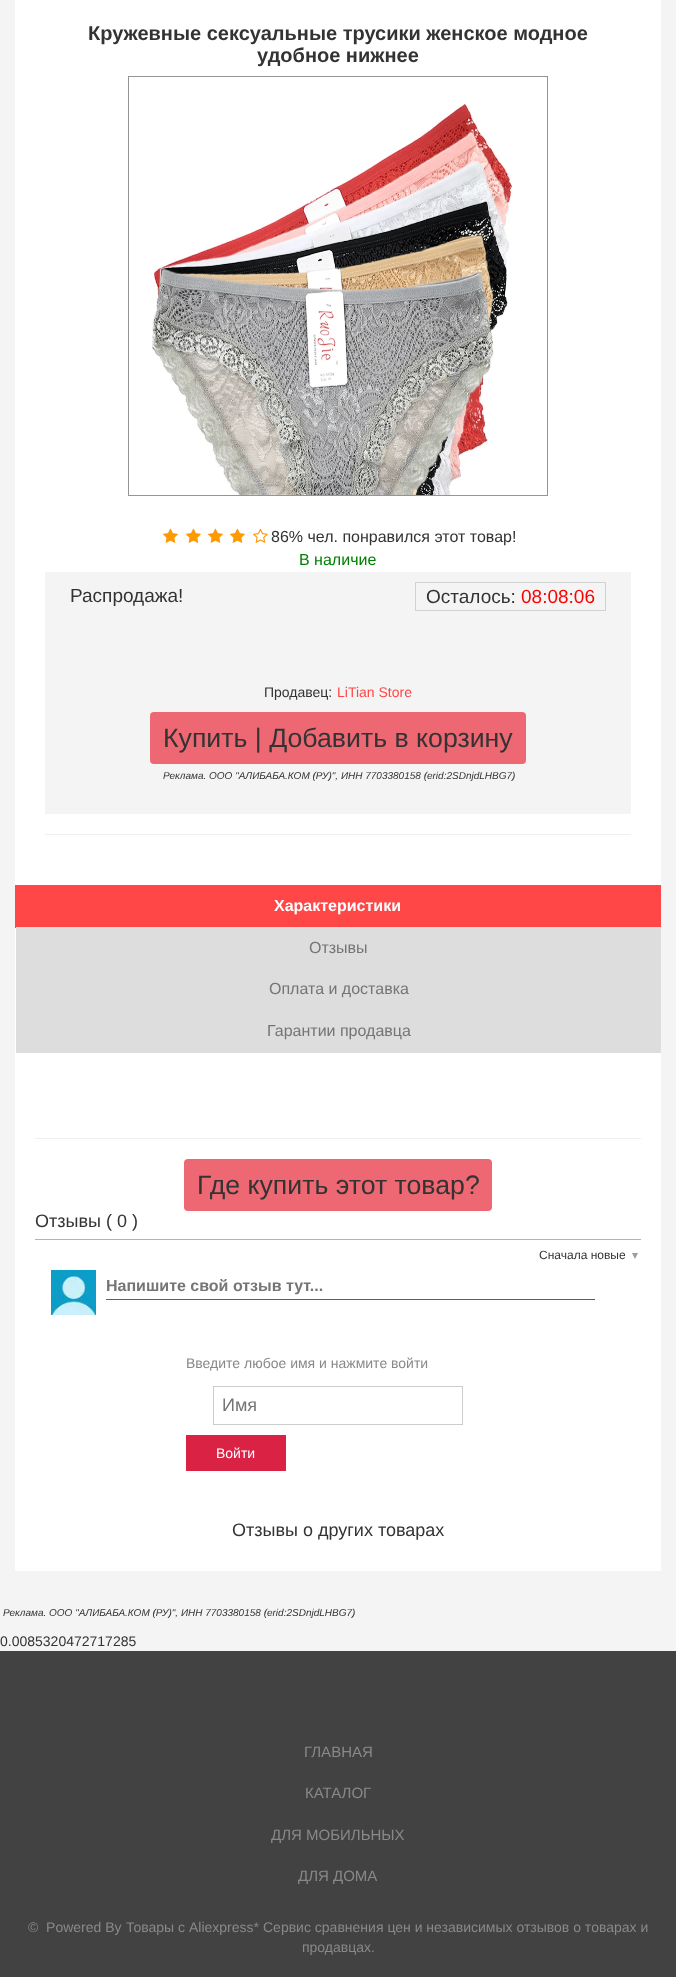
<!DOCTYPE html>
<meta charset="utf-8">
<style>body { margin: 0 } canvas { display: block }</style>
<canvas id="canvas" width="676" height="1977"></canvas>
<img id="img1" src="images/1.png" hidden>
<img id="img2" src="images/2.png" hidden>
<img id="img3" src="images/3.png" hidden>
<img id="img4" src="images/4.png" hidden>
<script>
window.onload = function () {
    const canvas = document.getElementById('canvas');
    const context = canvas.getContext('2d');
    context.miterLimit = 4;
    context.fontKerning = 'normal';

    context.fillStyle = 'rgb(244, 244, 244)';
    context.fillRect(0, 0, 676, 1977);
    context.fillStyle = 'rgb(255, 255, 255)';
    context.fillRect(15, 0, 646, 885);
    context.strokeStyle = 'rgb(149, 149, 149)';
    context.strokeRect(128.5, 76.5, 419, 419);
    context.drawImage(document.getElementById('img1'), 152, 104, 360, 391);
    context.drawImage(document.getElementById('img2'), 163, 528, 15, 15);
    context.drawImage(document.getElementById('img2'), 186, 528, 15, 15);
    context.drawImage(document.getElementById('img2'), 208, 528, 15, 15);
    context.drawImage(document.getElementById('img2'), 230, 528, 15, 15);
    context.drawImage(document.getElementById('img3'), 253, 528, 15, 15);
    context.fillStyle = 'rgb(244, 244, 244)';
    context.fillRect(45, 572, 586, 242);
    context.strokeStyle = 'rgb(209, 209, 209)';
    context.strokeRect(415.5, 582.5, 190, 28);
    context.fillStyle = 'rgb(237, 104, 115)';
    context.beginPath();
    context.roundRect(150, 712, 376, 52, 4);
    context.fill();
    context.fillStyle = 'rgb(238, 238, 238)';
    context.fillRect(45, 834, 586, 1);
    context.fillStyle = 'rgb(255, 255, 255)';
    context.fillRect(15, 928, 1, 124);
    context.fillStyle = 'rgb(255, 71, 71)';
    context.fillRect(15, 885, 646, 43);
    context.fillStyle = 'rgb(255, 255, 255)';
    context.fillRect(15, 1052, 646, 519);
    context.fillStyle = 'rgb(221, 221, 221)';
    context.fillRect(16, 927, 645, 126);
    context.fillStyle = 'rgb(238, 238, 238)';
    context.fillRect(35, 1138, 606, 1);
    context.fillStyle = 'rgb(237, 104, 115)';
    context.beginPath();
    context.roundRect(184, 1159, 308, 52, 4);
    context.fill();
    context.fillStyle = 'rgb(181, 181, 181)';
    context.fillRect(35, 1239, 606, 1);
    context.fillStyle = 'rgb(157, 157, 157)';
    context.beginPath();
    context.moveTo(632, 1253);
    context.lineTo(638, 1253);
    context.lineTo(635, 1259);
    context.closePath();
    context.fill();
    context.drawImage(document.getElementById('img4'), 51, 1270, 45, 45);
    context.fillStyle = 'rgb(218, 34, 68)';
    context.fillRect(106, 1299, 489, 1);
    context.strokeStyle = 'rgb(204, 204, 204)';
    context.strokeRect(213.5, 1386.5, 249, 38);
    context.fillRect(186, 1435, 100, 36);
    context.fillStyle = 'rgb(66, 66, 66)';
    context.fillRect(0, 1651, 676, 326);
    context.font = 'bold 20px Liberation Sans';
    context.fillStyle = 'rgb(51, 51, 51)';
    context.fillText('Кружевные сексуальные трусики женское модное', 88, 40);
    context.fillText('удобное нижнее', 257, 62);
    context.font = '16px Liberation Sans';
    context.fillText('86% чел. понравился этот товар!', 271, 542);
    context.fillStyle = 'rgb(0, 128, 0)';
    context.fillText('В наличие', 299, 565);
    context.font = '19px Liberation Sans';
    context.fillStyle = 'rgb(51, 51, 51)';
    context.fillText('Распродажа!', 70, 602);
    context.fillText('Осталось:', 426, 603);
    context.fillStyle = 'rgb(255, 0, 0)';
    context.fillText('08:08:06', 521, 603);
    context.font = '14px Liberation Sans';
    context.fillStyle = 'rgb(51, 51, 51)';
    context.fillText('Продавец:', 264, 697);
    context.fillStyle = 'rgb(255, 71, 71)';
    context.fillText('LiTian Store', 337, 697);
    context.font = '26.7px Liberation Sans';
    context.fillStyle = 'rgb(51, 51, 51)';
    context.fillText('Купить | Добавить в корзину', 163, 747);
    context.font = 'italic 10px Liberation Sans';
    context.fillText('Реклама. ООО "АЛИБАБА.КОМ (РУ)", ИНН 7703380158 (erid:2SDnjdLHBG7)', 163, 779);
    context.font = 'bold 16px Liberation Sans';
    context.fillStyle = 'rgb(255, 255, 255)';
    context.fillText('Характеристики', 274, 911);
    context.font = '16px Liberation Sans';
    context.fillStyle = 'rgb(117, 117, 117)';
    context.fillText('Отзывы', 309, 953);
    context.fillText('Оплата и доставка', 269, 994);
    context.fillText('Гарантии продавца', 267, 1036);
    context.font = '26.7px Liberation Sans';
    context.fillStyle = 'rgb(51, 51, 51)';
    context.fillText('Где купить этот товар?', 197, 1194);
    context.font = '18px Liberation Sans';
    context.fillText('Отзывы ( 0 )', 35, 1227);
    context.font = '12px Liberation Sans';
    context.fillText('Сначала новые', 539, 1259);
    context.font = 'bold 16px Liberation Sans';
    context.fillStyle = 'rgb(117, 117, 117)';
    context.fillText('Напишите свой отзыв тут...', 106, 1291);
    context.font = '14px Liberation Sans';
    context.fillStyle = 'rgb(137, 137, 137)';
    context.fillText('Введите любое имя и нажмите войти', 186, 1368);
    context.font = '18px Liberation Sans';
    context.fillStyle = 'rgb(117, 117, 117)';
    context.fillText('Имя', 222, 1411);
    context.font = '14px Liberation Sans';
    context.fillStyle = 'rgb(255, 255, 255)';
    context.fillText('Войти', 216, 1458);
    context.font = '18px Liberation Sans';
    context.fillStyle = 'rgb(51, 51, 51)';
    context.fillText('Отзывы о других товарах', 232, 1536);
    context.font = 'italic 10px Liberation Sans';
    context.fillText('Реклама. ООО "АЛИБАБА.КОМ (РУ)", ИНН 7703380158 (erid:2SDnjdLHBG7)', 3, 1616);
    context.font = '14px Liberation Sans';
    context.fillText('0.0085320472717285', 0, 1646);
    context.font = '15px Liberation Sans';
    context.fillStyle = 'rgb(137, 137, 137)';
    context.fillText('ГЛАВНАЯ', 304, 1757);
    context.fillText('КАТАЛОГ', 305, 1798);
    context.fillText('ДЛЯ МОБИЛЬНЫХ', 271, 1840);
    context.fillText('ДЛЯ ДОМА', 298, 1881);
    context.font = '14px Liberation Sans';
    context.fillText('©  Powered By', 28, 1932);
    context.fillText('Товары с Aliexpress*', 126, 1932);
    context.fillText('Сервис сравнения цен и независимых отзывов о товарах и', 263, 1932);
    context.fillText('продавцах.', 302, 1952);
};
</script>
